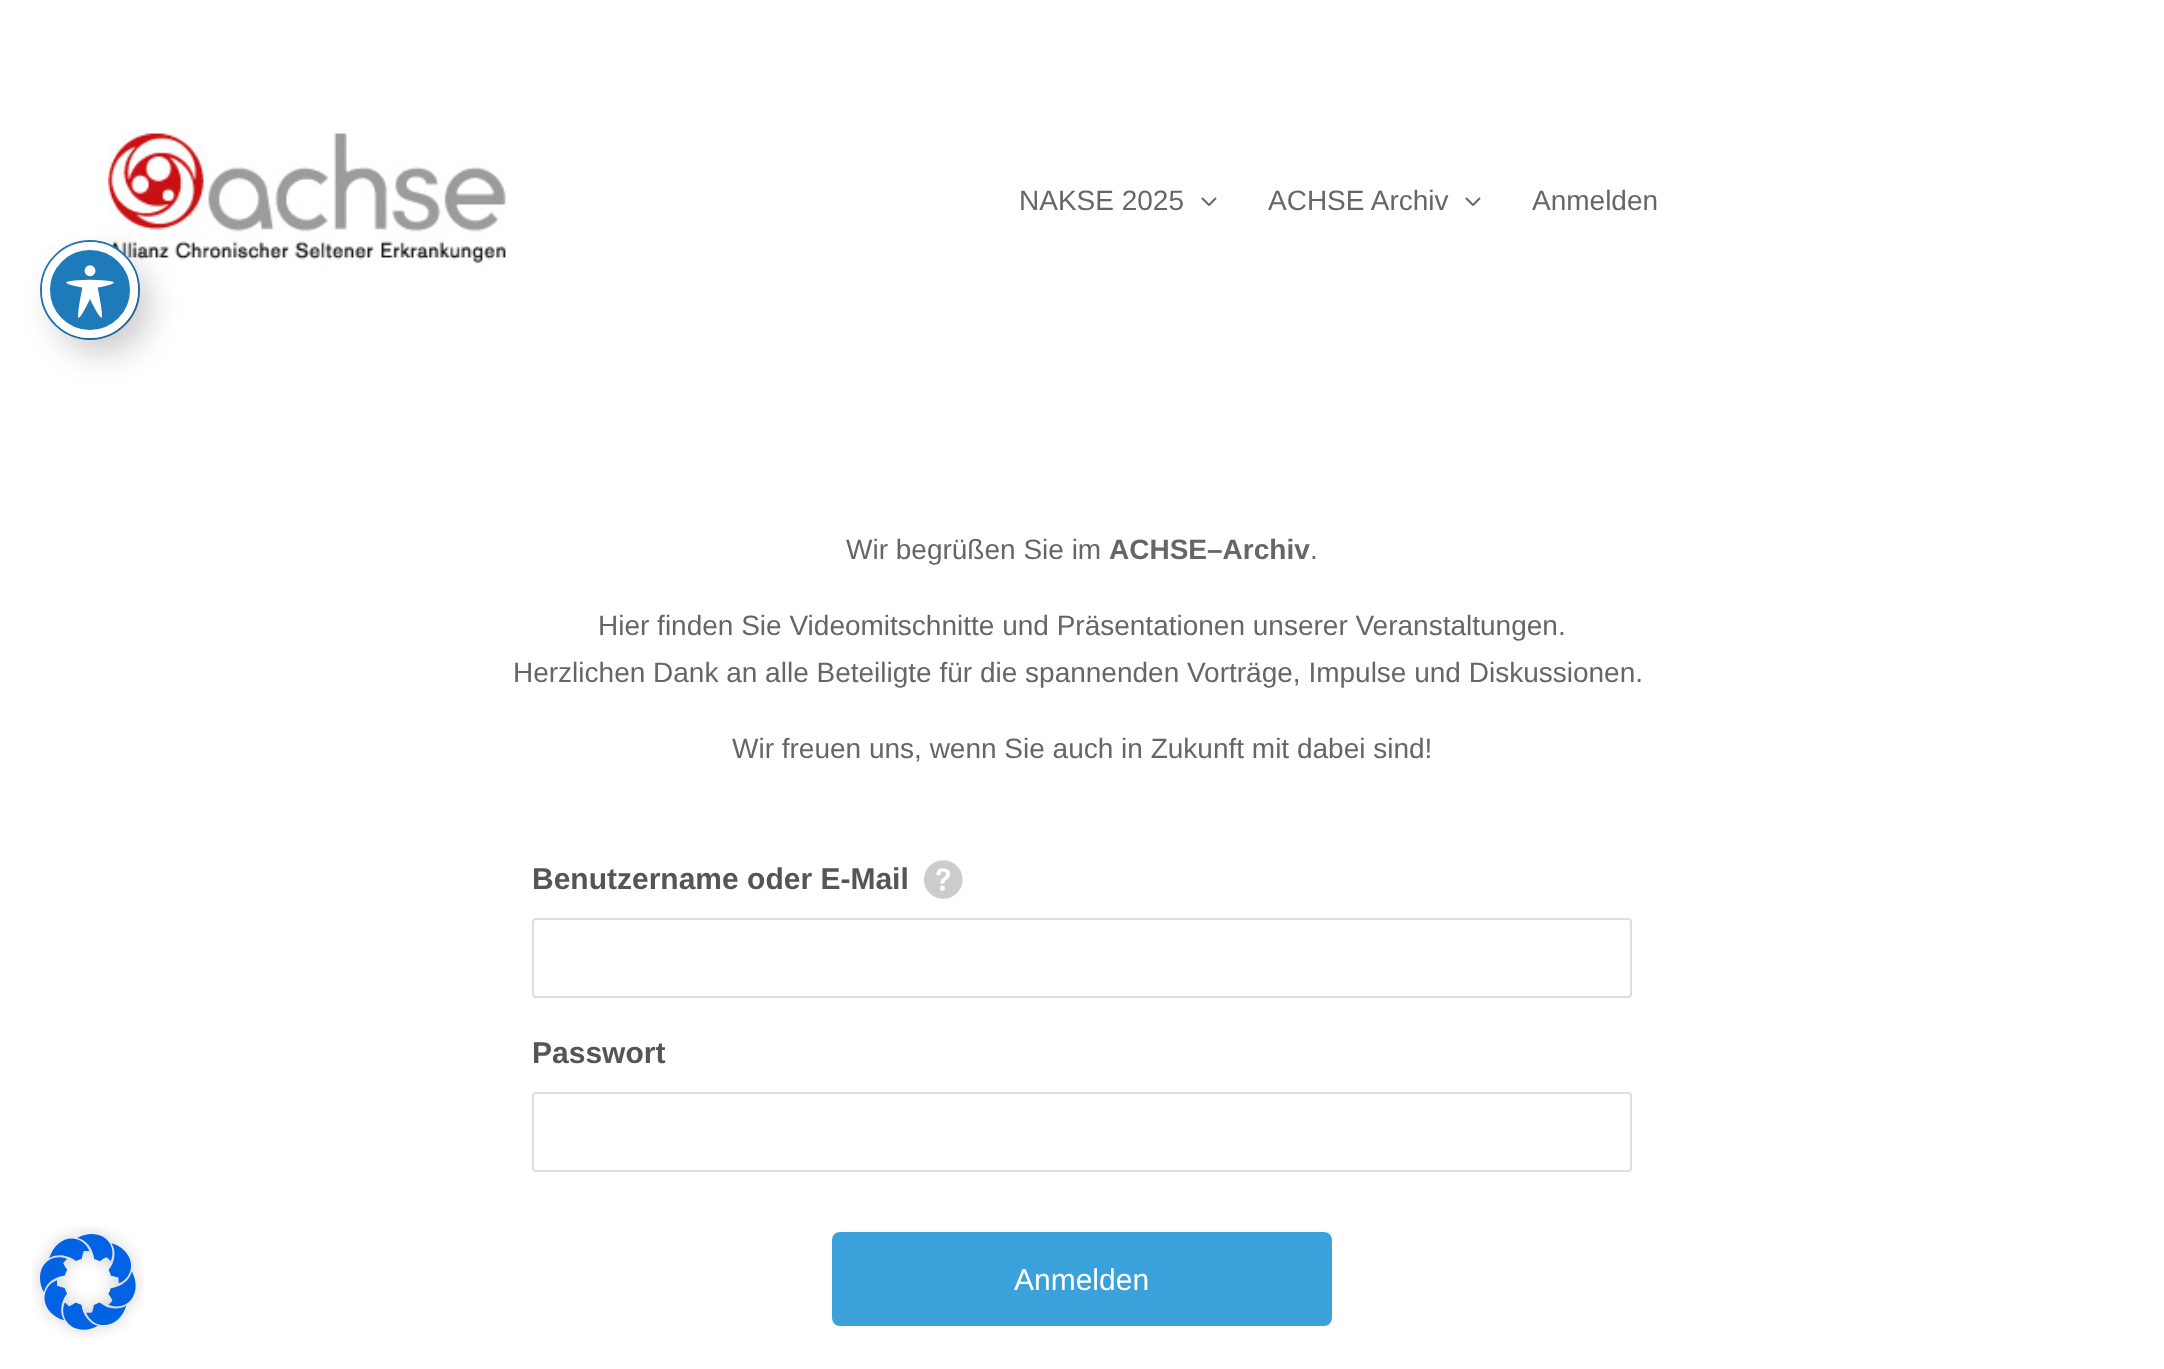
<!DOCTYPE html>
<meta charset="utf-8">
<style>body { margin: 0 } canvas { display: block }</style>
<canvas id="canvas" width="2164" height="1369"></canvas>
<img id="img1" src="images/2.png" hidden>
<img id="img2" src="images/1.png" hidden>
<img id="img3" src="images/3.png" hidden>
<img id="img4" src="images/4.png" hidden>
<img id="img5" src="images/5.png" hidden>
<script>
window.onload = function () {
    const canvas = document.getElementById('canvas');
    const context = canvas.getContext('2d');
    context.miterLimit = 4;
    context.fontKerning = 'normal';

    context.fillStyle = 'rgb(255, 255, 255)';
    context.fillRect(0, 0, 2164, 1369);
    context.drawImage(document.getElementById('img1'), 108, 130, 398, 138);
    context.beginPath();
    context.arc(90, 290, 49, 0, 2 * Math.PI);
    context.strokeStyle = 'rgb(30, 122, 185)';
    context.lineWidth = 2;
    context.stroke();
    context.fillStyle = 'rgba(0, 0, 0, 0.2)';
    context.filter = 'blur(16px)';
    context.beginPath();
    context.roundRect(54, 258, 96, 96, 48);
    context.fill();
    context.filter = 'none';
    context.fillStyle = 'rgb(30, 122, 185)';
    context.beginPath();
    context.arc(90, 290, 44, 0, 2 * Math.PI);
    context.fill();
    context.strokeStyle = 'rgb(255, 255, 255)';
    context.lineWidth = 8;
    context.stroke();
    context.drawImage(document.getElementById('img2'), 66, 265, 48, 53);
    context.drawImage(document.getElementById('img3'), 1201, 197, 16, 9);
    context.drawImage(document.getElementById('img3'), 1465, 197, 16, 9);
    context.drawImage(document.getElementById('img4'), 924, 860, 39, 39);
    context.beginPath();
    context.roundRect(533, 919, 1098, 78, 3);
    context.strokeStyle = 'rgb(221, 221, 221)';
    context.lineWidth = 2;
    context.stroke();
    context.beginPath();
    context.roundRect(533, 1093, 1098, 78, 3);
    context.stroke();
    context.fillStyle = 'rgb(59, 161, 218)';
    context.beginPath();
    context.roundRect(832, 1232, 500, 94, 8);
    context.fill();
    context.drawImage(document.getElementById('img5'), 32, 1226, 112, 112);
    context.font = '28px Liberation Sans';
    context.fillStyle = 'rgb(102, 102, 102)';
    context.fillText('NAKSE 2025', 1019, 210);
    context.fillText('ACHSE Archiv', 1268, 210);
    context.fillText('Anmelden', 1532, 210);
    context.fillText('Wir begrüßen Sie im', 846, 559);
    context.font = 'bold 28px Liberation Sans';
    context.fillText('ACHSE–Archiv', 1109, 559);
    context.font = '28px Liberation Sans';
    context.fillText('.', 1310, 559);
    context.fillText('Hier finden Sie Videomitschnitte und Präsentationen unserer Veranstaltungen.', 598, 635);
    context.fillText('Herzlichen Dank an alle Beteiligte für die spannenden Vorträge, Impulse und Diskussionen.', 513, 682);
    context.fillText('Wir freuen uns, wenn Sie auch in Zukunft mit dabei sind!', 732, 758);
    context.font = 'bold 30px Liberation Sans';
    context.fillStyle = 'rgb(85, 85, 85)';
    context.fillText('Benutzername oder E-Mail', 532, 889);
    context.fillText('Passwort', 532, 1063);
    context.font = '30px Liberation Sans';
    context.fillStyle = 'rgb(255, 255, 255)';
    context.fillText('Anmelden', 1014, 1290);
};
</script>
